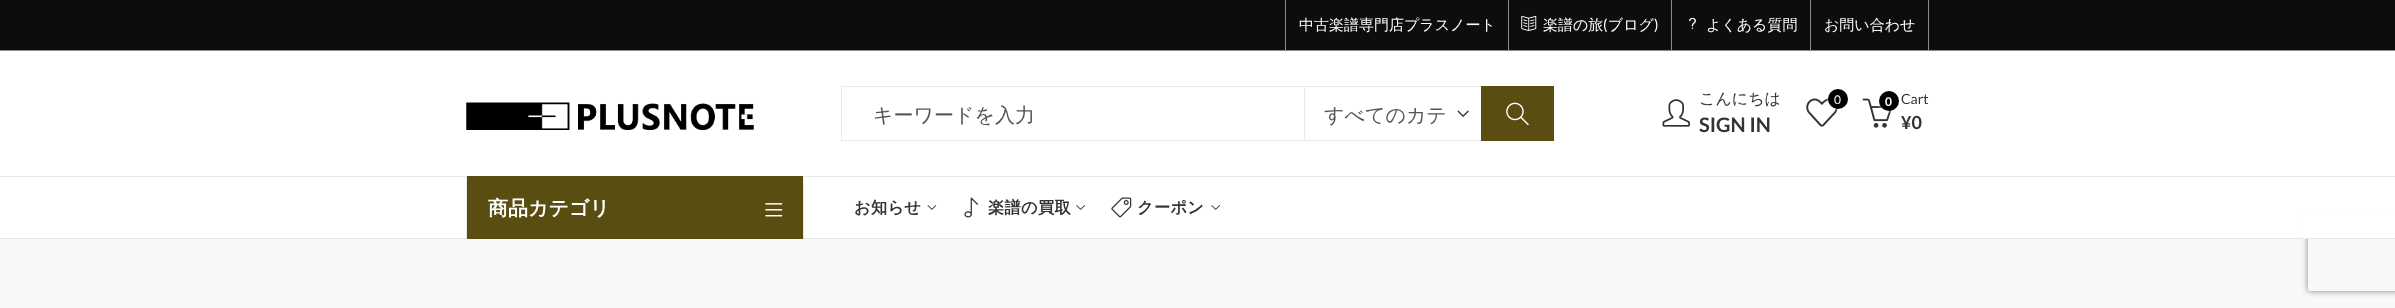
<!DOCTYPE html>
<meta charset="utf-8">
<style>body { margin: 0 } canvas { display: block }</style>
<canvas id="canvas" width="2395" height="308"></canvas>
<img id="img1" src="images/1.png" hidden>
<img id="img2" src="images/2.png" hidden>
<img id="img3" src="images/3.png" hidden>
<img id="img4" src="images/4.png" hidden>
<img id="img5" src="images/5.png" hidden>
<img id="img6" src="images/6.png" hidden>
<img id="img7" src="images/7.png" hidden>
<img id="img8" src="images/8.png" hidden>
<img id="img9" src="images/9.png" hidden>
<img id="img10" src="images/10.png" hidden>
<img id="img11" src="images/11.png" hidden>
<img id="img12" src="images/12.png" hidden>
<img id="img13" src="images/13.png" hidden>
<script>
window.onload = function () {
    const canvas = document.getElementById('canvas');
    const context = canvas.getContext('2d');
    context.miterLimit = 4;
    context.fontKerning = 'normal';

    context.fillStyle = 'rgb(255, 255, 255)';
    context.fillRect(0, 0, 2395, 308);
    context.fillStyle = 'rgb(13, 13, 13)';
    context.fillRect(0, 0, 2395, 50);
    context.fillStyle = 'rgb(140, 140, 140)';
    context.fillRect(0, 50, 2395, 1);
    context.fillRect(1285, 0, 1, 50);
    context.fillRect(1928, 0, 1, 50);
    context.fillRect(1508, 0, 1, 50);
    context.drawImage(document.getElementById('img1'), 1521, 15, 16, 16);
    context.fillRect(1671, 0, 1, 50);
    context.drawImage(document.getElementById('img2'), 1689, 17, 7, 12);
    context.fillRect(1810, 0, 1, 50);
    context.drawImage(document.getElementById('img3'), 466, 102, 288, 28);
    context.strokeStyle = 'rgb(233, 233, 233)';
    context.strokeRect(841.5, 86.5, 712, 54);
    context.fillStyle = 'rgb(233, 233, 233)';
    context.fillRect(1304, 88, 1, 52);
    context.drawImage(document.getElementById('img4'), 1457, 110, 12, 8);
    context.fillStyle = 'rgb(89, 77, 17)';
    context.fillRect(1481, 86, 73, 55);
    context.drawImage(document.getElementById('img5'), 1506, 102, 23, 24);
    context.drawImage(document.getElementById('img6'), 1662, 99, 28, 28);
    context.drawImage(document.getElementById('img7'), 1806, 98, 32, 29);
    context.fillStyle = 'rgba(255, 255, 255, 0.7)';
    context.filter = 'blur(2px)';
    context.beginPath();
    context.roundRect(1828, 89, 20, 20, 10);
    context.fill();
    context.filter = 'none';
    context.fillStyle = 'rgb(0, 0, 0)';
    context.beginPath();
    context.arc(1838, 99, 10, 0, 2 * Math.PI);
    context.fill();
    context.drawImage(document.getElementById('img8'), 1862, 98, 30, 30);
    context.fillStyle = 'rgba(255, 255, 255, 0.7)';
    context.filter = 'blur(2px)';
    context.beginPath();
    context.roundRect(1879, 91, 20, 20, 10);
    context.fill();
    context.filter = 'none';
    context.fillStyle = 'rgb(0, 0, 0)';
    context.beginPath();
    context.arc(1889, 101, 10, 0, 2 * Math.PI);
    context.fill();
    context.fillStyle = 'rgb(248, 248, 248)';
    context.fillRect(0, 239, 2395, 69);
    context.save();
    context.beginPath();
    context.moveTo(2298, 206);
    context.lineTo(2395, 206);
    context.lineTo(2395, 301);
    context.lineTo(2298, 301);
    context.closePath();
    context.moveTo(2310.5, 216);
    context.lineTo(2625.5, 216);
    context.bezierCurveTo(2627, 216, 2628, 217, 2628, 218.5);
    context.lineTo(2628, 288.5);
    context.bezierCurveTo(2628, 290, 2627, 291, 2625.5, 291);
    context.lineTo(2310.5, 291);
    context.bezierCurveTo(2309, 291, 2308, 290, 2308, 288.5);
    context.lineTo(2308, 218.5);
    context.bezierCurveTo(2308, 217, 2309, 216, 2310.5, 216);
    context.closePath();
    context.clip('evenodd');
    context.fillStyle = 'rgb(128, 128, 128)';
    context.filter = 'blur(3px)';
    context.beginPath();
    context.roundRect(2308, 216, 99, 75, 2.5);
    context.fill();
    context.filter = 'none';
    context.restore();
    context.fillStyle = 'rgb(255, 255, 255)';
    context.fillRect(2302, 210, 93, 28);
    context.fillStyle = 'rgb(233, 233, 233)';
    context.fillRect(0, 176, 2395, 1);
    context.fillRect(0, 238, 2395, 1);
    context.fillStyle = 'rgb(89, 77, 17)';
    context.fillRect(467, 176, 336, 63);
    context.fillStyle = 'rgb(233, 233, 233)';
    context.fillRect(803, 176, 1, 63);
    context.fillRect(466, 176, 1, 63);
    context.drawImage(document.getElementById('img9'), 765, 203, 18, 14);
    context.drawImage(document.getElementById('img10'), 927, 205, 10, 5);
    context.drawImage(document.getElementById('img11'), 964, 197, 14, 21);
    context.drawImage(document.getElementById('img12'), 1076, 205, 9, 5);
    context.drawImage(document.getElementById('img13'), 1111, 197, 21, 21);
    context.drawImage(document.getElementById('img12'), 1211, 205, 9, 5);
    context.font = '500 15px WenQuanYi Zen Hei';
    context.fillStyle = 'rgb(255, 255, 255)';
    context.fillText('中古楽譜専門店プラスノート', 1299, 30);
    context.fillText('楽譜の旅 ブログ', 1543, 30);
    context.font = '15px Lato';
    context.fillText('(', 1603, 30);
    context.fillText(')', 1654, 30);
    context.font = '500 15px WenQuanYi Zen Hei';
    context.fillText('よくある質問', 1706, 30);
    context.fillText('お問い合わせ', 1824, 30);
    context.font = '500 20px WenQuanYi Zen Hei';
    context.fillStyle = 'rgb(85, 85, 85)';
    context.fillText('キーワードを入力', 873, 122);
    context.fillText('すべてのカテ', 1324, 122);
    context.font = '500 16px WenQuanYi Zen Hei';
    context.fillStyle = 'rgb(51, 51, 51)';
    context.fillText('こんにちは', 1699, 104);
    context.font = 'bold 20px Lato';
    context.fillText('SIGN IN', 1699, 132);
    context.font = '12px Lato';
    context.fillStyle = 'rgb(255, 255, 255)';
    context.fillText('0', 1834, 104);
    context.font = 'bold 12px Lato';
    context.fillText('0', 1885, 106);
    context.font = '14px Lato';
    context.fillStyle = 'rgb(51, 51, 51)';
    context.fillText('Cart', 1901, 104);
    context.font = 'bold 18px Lato';
    context.fillText('¥0', 1901, 129);
    context.font = 'bold 20px WenQuanYi Zen Hei';
    context.fillStyle = 'rgb(255, 255, 255)';
    context.fillText('商品カテゴリ', 488, 215);
    context.letterSpacing = '0.25px';
    context.font = 'bold 16.25px WenQuanYi Zen Hei';
    context.fillStyle = 'rgb(51, 51, 51)';
    context.fillText('お知らせ', 854, 213);
    context.fillText('楽譜の買取', 988, 213);
    context.fillText('クーポン', 1137, 213);
};
</script>
